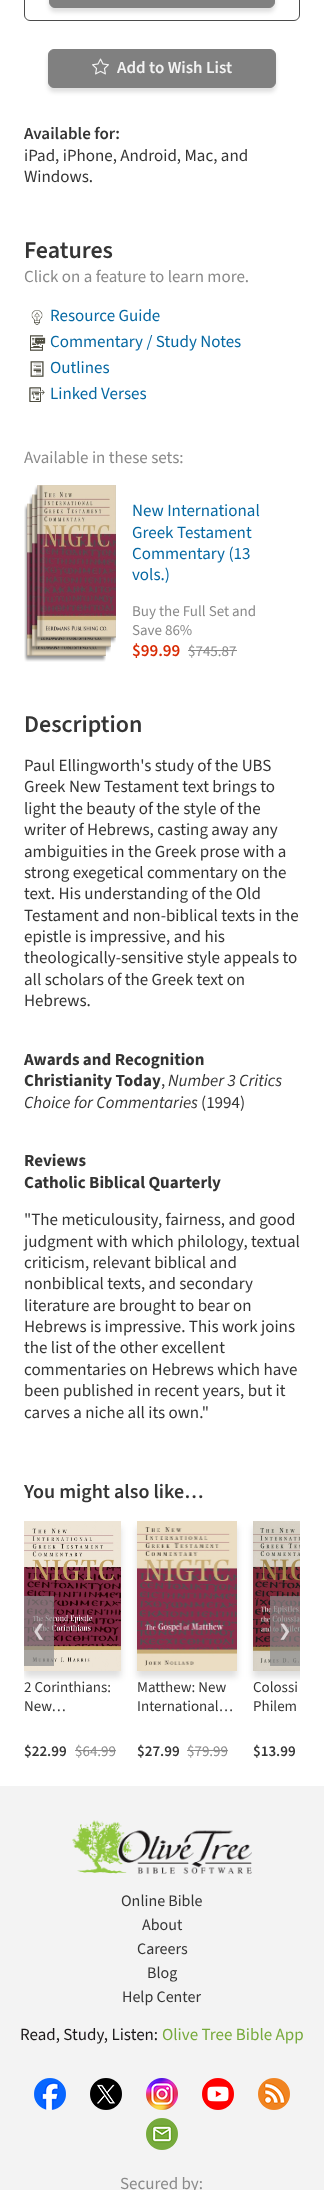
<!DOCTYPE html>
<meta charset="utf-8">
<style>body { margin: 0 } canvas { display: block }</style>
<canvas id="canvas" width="324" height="2190"></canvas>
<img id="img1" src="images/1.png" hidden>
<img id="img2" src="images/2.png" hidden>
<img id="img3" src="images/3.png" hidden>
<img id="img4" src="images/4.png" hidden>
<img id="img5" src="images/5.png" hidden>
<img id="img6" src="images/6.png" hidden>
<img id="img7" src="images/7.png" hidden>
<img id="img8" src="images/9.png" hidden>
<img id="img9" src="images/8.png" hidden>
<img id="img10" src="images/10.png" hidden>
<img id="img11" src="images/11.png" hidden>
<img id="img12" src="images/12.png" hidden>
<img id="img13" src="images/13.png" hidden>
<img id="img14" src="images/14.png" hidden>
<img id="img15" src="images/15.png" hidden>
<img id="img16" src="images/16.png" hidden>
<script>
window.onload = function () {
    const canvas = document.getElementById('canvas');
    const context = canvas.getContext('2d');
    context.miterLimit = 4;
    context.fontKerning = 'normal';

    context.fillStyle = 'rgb(255, 255, 255)';
    context.fillRect(0, 0, 324, 2190);
    context.beginPath();
    context.roundRect(24.5, -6.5, 275, 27, 5.5);
    context.strokeStyle = 'rgb(75, 75, 75)';
    context.stroke();
    context.fillStyle = 'rgba(0, 0, 0, 0.13)';
    context.filter = 'blur(2px)';
    context.beginPath();
    context.roundRect(49, -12, 226, 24, 6);
    context.fill();
    context.filter = 'none';
    context.fillStyle = 'rgb(128, 128, 128)';
    context.beginPath();
    context.roundRect(49.5, -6.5, 225, 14, 5.5);
    context.fill();
    context.strokeStyle = 'rgb(128, 128, 128)';
    context.stroke();
    context.fillStyle = 'rgba(0, 0, 0, 0.13)';
    context.filter = 'blur(2px)';
    context.beginPath();
    context.roundRect(48, 53, 228, 39, 6);
    context.fill();
    context.filter = 'none';
    context.fillStyle = 'rgb(128, 128, 128)';
    context.beginPath();
    context.roundRect(48.5, 49.5, 227, 38, 5.5);
    context.fill();
    context.stroke();
    context.drawImage(document.getElementById('img1'), 92, 58, 17, 17);
    context.drawImage(document.getElementById('img2'), 31, 310, 12, 15);
    context.drawImage(document.getElementById('img3'), 30, 335, 16, 16);
    context.drawImage(document.getElementById('img4'), 30, 361, 14, 16);
    context.drawImage(document.getElementById('img5'), 29, 387, 16, 15);
    context.drawImage(document.getElementById('img6'), 24, 485, 92, 177);
    context.fillStyle = 'rgb(138, 138, 138)';
    context.fillRect(188, 650, 49, 1);
    context.save();
    context.beginPath();
    context.rect(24, 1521, 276, 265);
    context.clip();
    context.fillStyle = 'rgba(0, 0, 0, 0.13)';
    context.filter = 'blur(3px)';
    context.beginPath();
    context.rect(24, 1527, 97, 150);
    context.fill();
    context.filter = 'none';
    context.restore();
    context.drawImage(document.getElementById('img7'), 24, 1521, 97, 150);
    context.fillStyle = 'rgba(138, 138, 138, 0.7)';
    context.fillRect(24, 1596, 30, 70);
    context.save();
    context.beginPath();
    context.rect(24, 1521, 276, 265);
    context.clip();
    context.fillStyle = 'rgba(0, 0, 0, 0.13)';
    context.filter = 'blur(3px)';
    context.beginPath();
    context.rect(253, 1527, 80, 150);
    context.fill();
    context.filter = 'none';
    context.restore();
    context.drawImage(document.getElementById('img8'), 253, 1521, 47, 150);
    context.fillRect(270, 1596, 30, 70);
    context.fillStyle = 'rgb(138, 138, 138)';
    context.fillRect(75, 1750, 41, 1);
    context.fillStyle = 'rgba(0, 0, 0, 0.13)';
    context.filter = 'blur(3px)';
    context.beginPath();
    context.rect(137, 1527, 100, 150);
    context.fill();
    context.filter = 'none';
    context.drawImage(document.getElementById('img9'), 137, 1521, 100, 150);
    context.fillStyle = 'rgb(138, 138, 138)';
    context.fillRect(187, 1750, 41, 1);
    context.fillStyle = 'rgb(243, 243, 243)';
    context.fillRect(0, 1786, 324, 404);
    context.drawImage(document.getElementById('img10'), 72, 1820, 180, 54);
    context.drawImage(document.getElementById('img11'), 34, 2078, 32, 32);
    context.drawImage(document.getElementById('img12'), 90, 2078, 32, 32);
    context.drawImage(document.getElementById('img13'), 146, 2078, 32, 32);
    context.drawImage(document.getElementById('img14'), 202, 2078, 32, 32);
    context.drawImage(document.getElementById('img15'), 258, 2078, 32, 32);
    context.drawImage(document.getElementById('img16'), 146, 2118, 32, 32);
    context.font = '600 17px "Source Sans 3"';
    context.fillText('Add to Wish List', 117, 73);
    context.fillStyle = 'rgb(53, 53, 53)';
    context.fillText('Available for:', 24, 139);
    context.font = '17px "Source Sans 3"';
    context.fillText('iPad, iPhone, Android, Mac, and', 24, 161);
    context.fillText('Windows.', 24, 182);
    context.font = '600 24px "Source Sans 3"';
    context.fillText('Features', 24, 258);
    context.font = '17px "Source Sans 3"';
    context.fillStyle = 'rgb(138, 138, 138)';
    context.fillText('Click on a feature to learn more.', 24, 282);
    context.fillStyle = 'rgb(7, 105, 163)';
    context.fillText('Resource Guide', 50, 321);
    context.fillText('Commentary / Study Notes', 50, 347);
    context.fillText('Outlines', 50, 373);
    context.fillText('Linked Verses', 50, 399);
    context.fillStyle = 'rgb(138, 138, 138)';
    context.fillText('Available in these sets:', 24, 463);
    context.fillStyle = 'rgb(7, 105, 163)';
    context.fillText('New International', 132, 516);
    context.fillText('Greek Testament', 132, 538);
    context.fillText('Commentary (13', 132, 559);
    context.fillText('vols.)', 132, 580);
    context.font = '15px "Source Sans 3"';
    context.fillStyle = 'rgb(138, 138, 138)';
    context.fillText('Buy the Full Set and', 132, 616);
    context.fillText('Save 86%', 132, 635);
    context.font = '600 17px "Source Sans 3"';
    context.fillStyle = 'rgb(217, 43, 4)';
    context.fillText('$99.99', 132, 656);
    context.font = '15px "Source Sans 3"';
    context.fillStyle = 'rgb(138, 138, 138)';
    context.fillText('$745.87', 188, 656);
    context.font = '600 24px "Source Sans 3"';
    context.fillStyle = 'rgb(53, 53, 53)';
    context.fillText('Description', 24, 732);
    context.font = '17px "Source Sans 3"';
    context.fillText('Paul Ellingworth\'s study of the UBS', 24, 771);
    context.fillText('Greek New Testament text brings to', 24, 792);
    context.fillText('light the beauty of the style of the', 24, 814);
    context.fillText('writer of Hebrews, casting away any', 24, 835);
    context.fillText('ambiguities in the Greek prose with a', 24, 857);
    context.fillText('strong exegetical commentary on the', 24, 878);
    context.fillText('text. His understanding of the Old', 24, 899);
    context.fillText('Testament and non-biblical texts in the', 24, 921);
    context.fillText('epistle is impressive, and his', 24, 942);
    context.fillText('theologically-sensitive style appeals to', 24, 963);
    context.fillText('all scholars of the Greek text on', 24, 985);
    context.fillText('Hebrews.', 24, 1006);
    context.font = 'bold 17px "Source Sans 3"';
    context.fillText('Awards and Recognition', 24, 1065);
    context.fillText('Christianity Today', 24, 1086);
    context.font = '17px "Source Sans 3"';
    context.fillText(',', 161, 1086);
    context.font = 'italic 17px "Source Sans 3"';
    context.fillText('Number 3 Critics', 168, 1086);
    context.fillText('Choice for Commentaries', 24, 1108);
    context.font = '17px "Source Sans 3"';
    context.fillText('(1994)', 201, 1108);
    context.font = 'bold 17px "Source Sans 3"';
    context.fillText('Reviews', 24, 1166);
    context.fillText('Catholic Biblical Quarterly', 24, 1188);
    context.font = '17px "Source Sans 3"';
    context.fillText('"The meticulousity, fairness, and good', 24, 1225);
    context.fillText('judgment with which philology, textual', 24, 1247);
    context.fillText('criticism, relevant biblical and', 24, 1268);
    context.fillText('nonbiblical texts, and secondary', 24, 1289);
    context.fillText('literature are brought to bear on', 24, 1311);
    context.fillText('Hebrews is impressive. This work joins', 24, 1332);
    context.fillText('the list of the other excellent', 24, 1353);
    context.fillText('commentaries on Hebrews which have', 24, 1375);
    context.fillText('been published in recent years, but it', 24, 1396);
    context.fillText('carves a niche all its own."', 24, 1418);
    context.font = '600 20px "Source Sans 3"';
    context.fillText('You might also like…', 24, 1498);
    context.font = '16px DejaVu Sans';
    context.fillStyle = 'rgb(218, 211, 213)';
    context.fillText('❮', 32, 1636);
    context.fillText('❯', 278, 1636);
    context.font = '15px "Source Sans 3"';
    context.fillStyle = 'rgb(53, 53, 53)';
    context.fillText('2 Corinthians:', 24, 1692);
    context.fillText('New…', 24, 1711);
    context.font = '600 15px "Source Sans 3"';
    context.fillText('$22.99', 24, 1756);
    context.font = '15px "Source Sans 3"';
    context.fillStyle = 'rgb(138, 138, 138)';
    context.fillText('$64.99', 75, 1756);
    context.fillStyle = 'rgb(53, 53, 53)';
    context.fillText('Matthew: New', 137, 1692);
    context.fillText('International…', 137, 1711);
    context.font = '600 15px "Source Sans 3"';
    context.fillText('$27.99', 137, 1756);
    context.font = '15px "Source Sans 3"';
    context.fillStyle = 'rgb(138, 138, 138)';
    context.fillText('$79.99', 187, 1756);
    context.fillStyle = 'rgb(53, 53, 53)';
    context.fillText('Colossi', 253, 1692);
    context.fillText('Philem', 253, 1711);
    context.font = '600 15px "Source Sans 3"';
    context.fillText('$13.99', 253, 1756);
    context.font = '16px "Source Sans 3"';
    context.fillText('Online Bible', 121, 1906);
    context.fillText('About', 142, 1930);
    context.fillText('Careers', 137, 1954);
    context.fillText('Blog', 147, 1978);
    context.fillText('Help Center', 122, 2002);
    context.font = '17px "Source Sans 3"';
    context.fillStyle = 'rgb(26, 23, 24)';
    context.fillText('Read, Study, Listen:', 20, 2040);
    context.fillStyle = 'rgb(119, 170, 60)';
    context.fillText('Olive Tree Bible App', 162, 2040);
    context.fillStyle = 'rgb(138, 138, 138)';
    context.fillText('Secured by:', 120, 2189);
};
</script>
